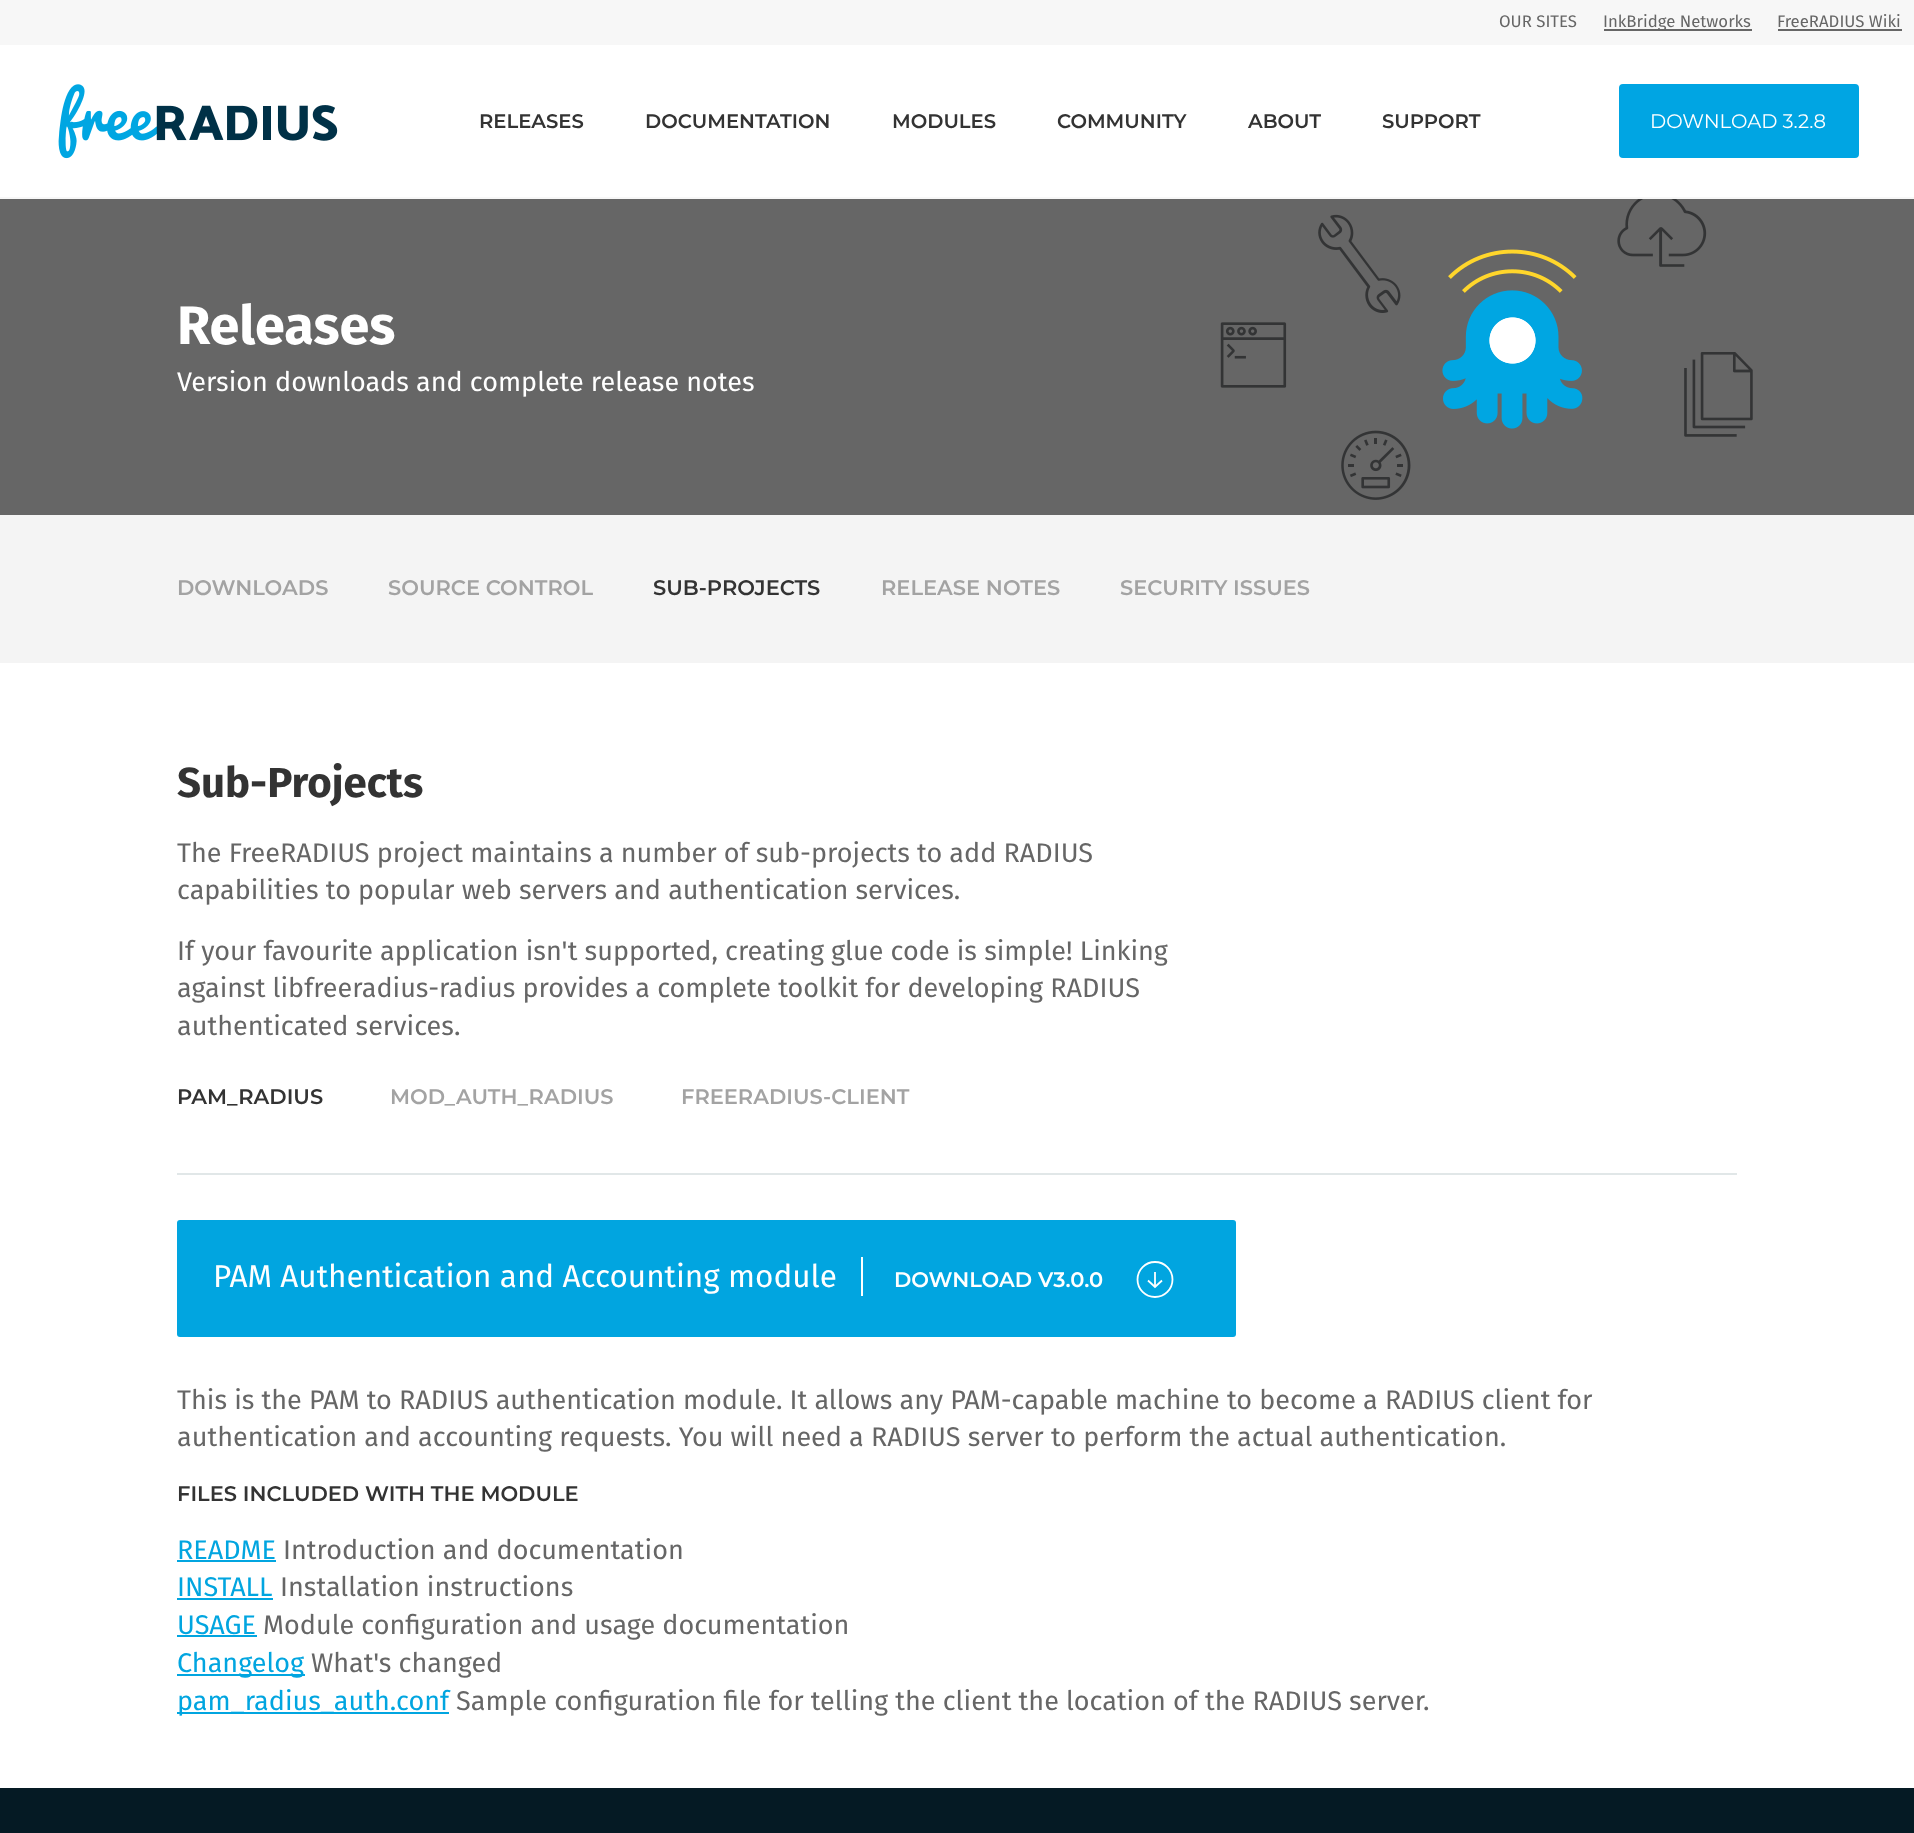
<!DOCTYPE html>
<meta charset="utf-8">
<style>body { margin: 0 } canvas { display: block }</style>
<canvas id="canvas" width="1914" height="1833"></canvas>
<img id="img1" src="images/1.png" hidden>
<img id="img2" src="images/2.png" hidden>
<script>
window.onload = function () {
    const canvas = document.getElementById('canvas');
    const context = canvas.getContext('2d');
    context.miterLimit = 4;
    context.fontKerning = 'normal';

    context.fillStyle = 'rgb(255, 255, 255)';
    context.fillRect(0, 0, 1914, 1833);
    context.fillStyle = 'rgb(247, 247, 247)';
    context.fillRect(0, 0, 1914, 45);
    context.fillStyle = 'rgb(102, 102, 102)';
    context.fillRect(1604, 29, 148, 2);
    context.fillRect(1778, 29, 124, 2);
    context.fillStyle = 'rgb(247, 247, 247)';
    context.fillRect(0, 197, 1914, 2);
    context.drawImage(document.getElementById('img1'), 58, 84, 280, 75);
    context.fillStyle = 'rgb(0, 165, 227)';
    context.beginPath();
    context.roundRect(1620, 85, 238, 72, 3);
    context.fill();
    context.strokeStyle = 'rgb(0, 165, 227)';
    context.lineWidth = 2;
    context.stroke();
    context.fillStyle = 'rgb(102, 102, 102)';
    context.fillRect(0, 199, 1914, 316);
    context.drawImage(document.getElementById('img2'), 1220, 199, 533, 301);
    context.fillStyle = 'rgb(244, 244, 244)';
    context.fillRect(0, 515, 1914, 148);
    context.fillStyle = 'rgb(225, 231, 232)';
    context.fillRect(177, 1173, 1560, 2);
    context.fillStyle = 'rgb(1, 165, 224)';
    context.beginPath();
    context.roundRect(177, 1220, 1059, 117, 3);
    context.fill();
    context.fillStyle = 'rgb(255, 255, 255)';
    context.fillRect(861, 1257, 2, 39);
    context.beginPath();
    context.moveTo(1162, 1280.5);
    context.lineTo(1155, 1287);
    context.lineTo(1148, 1280.5);
    context.strokeStyle = 'rgb(255, 255, 255)';
    context.lineWidth = 1.8;
    context.stroke();
    context.fillStyle = 'rgba(255, 255, 255, 0.9)';
    context.fillRect(1154, 1272, 2, 15);
    context.beginPath();
    context.arc(1155, 1279.5, 17.5, 0, 2 * Math.PI);
    context.stroke();
    context.fillStyle = 'rgb(1, 165, 224)';
    context.fillRect(177, 1560, 99, 2);
    context.fillRect(177, 1598, 96, 2);
    context.fillRect(177, 1635, 80, 2);
    context.fillRect(177, 1674, 128, 2);
    context.fillRect(177, 1712, 272, 2);
    context.fillStyle = 'rgb(5, 26, 36)';
    context.fillRect(0, 1788, 1914, 45);
    context.font = '16.75px Fira Sans';
    context.fillStyle = 'rgb(102, 102, 102)';
    context.fillText('OUR SITES', 1499, 27);
    context.fillText('InkBridge Networks', 1603, 27);
    context.fillText('FreeRADIUS Wiki', 1777, 27);
    context.font = '600 19.6px Montserrat';
    context.fillStyle = 'rgb(51, 51, 51)';
    context.fillText('RELEASES', 479, 128);
    context.fillText('DOCUMENTATION', 645, 128);
    context.fillText('MODULES', 892, 128);
    context.fillText('COMMUNITY', 1057, 128);
    context.fillText('ABOUT', 1248, 128);
    context.fillText('SUPPORT', 1382, 128);
    context.font = '19.6px Montserrat';
    context.fillStyle = 'rgb(255, 255, 255)';
    context.fillText('DOWNLOAD 3.2.8', 1650, 128);
    context.font = 'bold 54px Fira Sans';
    context.fillText('Releases', 177, 344);
    context.font = '27px Fira Sans';
    context.fillText('Version downloads and complete release notes', 177, 391);
    context.font = '600 21px Montserrat';
    context.fillStyle = 'rgb(163, 163, 163)';
    context.fillText('DOWNLOADS', 177, 595);
    context.fillText('SOURCE CONTROL', 388, 595);
    context.fillStyle = 'rgb(51, 51, 51)';
    context.fillText('SUB-PROJECTS', 653, 595);
    context.fillStyle = 'rgb(163, 163, 163)';
    context.fillText('RELEASE NOTES', 881, 595);
    context.fillText('SECURITY ISSUES', 1120, 595);
    context.font = 'bold 42px Fira Sans';
    context.fillStyle = 'rgb(51, 51, 51)';
    context.fillText('Sub-Projects', 177, 797);
    context.font = '27px Fira Sans';
    context.fillStyle = 'rgb(102, 102, 102)';
    context.fillText('The FreeRADIUS project maintains a number of sub-projects to add RADIUS', 177, 862);
    context.fillText('capabilities to popular web servers and authentication services.', 177, 899);
    context.fillText('If your favourite application isn\'t supported, creating glue code is simple! Linking', 177, 960);
    context.fillText('against libfreeradius-radius provides a complete toolkit for developing RADIUS', 177, 997);
    context.fillText('authenticated services.', 177, 1035);
    context.font = '600 21px Montserrat';
    context.fillStyle = 'rgb(51, 51, 51)';
    context.fillText('PAM_RADIUS', 177, 1104);
    context.fillStyle = 'rgb(163, 163, 163)';
    context.fillText('MOD_AUTH_RADIUS', 390, 1104);
    context.fillText('FREERADIUS-CLIENT', 681, 1104);
    context.font = '31.5px Fira Sans';
    context.fillStyle = 'rgb(255, 255, 255)';
    context.fillText('PAM Authentication and Accounting module', 213, 1287);
    context.font = '600 21px Montserrat';
    context.fillText('DOWNLOAD V3.0.0', 894, 1287);
    context.font = '27px Fira Sans';
    context.fillStyle = 'rgb(102, 102, 102)';
    context.fillText('This is the PAM to RADIUS authentication module. It allows any PAM-capable machine to become a RADIUS client for', 177, 1409);
    context.fillText('authentication and accounting requests. You will need a RADIUS server to perform the actual authentication.', 177, 1446);
    context.font = '600 21px Montserrat';
    context.fillStyle = 'rgb(51, 51, 51)';
    context.fillText('FILES INCLUDED WITH THE MODULE', 177, 1501);
    context.font = '27px Fira Sans';
    context.fillStyle = 'rgb(1, 165, 224)';
    context.fillText('README', 177, 1559);
    context.fillStyle = 'rgb(102, 102, 102)';
    context.fillText('Introduction and documentation', 283, 1559);
    context.fillStyle = 'rgb(1, 165, 224)';
    context.fillText('INSTALL', 177, 1596);
    context.fillStyle = 'rgb(102, 102, 102)';
    context.fillText('Installation instructions', 280, 1596);
    context.fillStyle = 'rgb(1, 165, 224)';
    context.fillText('USAGE', 177, 1634);
    context.fillStyle = 'rgb(102, 102, 102)';
    context.fillText('Module configuration and usage documentation', 263, 1634);
    context.fillStyle = 'rgb(1, 165, 224)';
    context.fillText('Changelog', 177, 1672);
    context.fillStyle = 'rgb(102, 102, 102)';
    context.fillText('What\'s changed', 311, 1672);
    context.fillStyle = 'rgb(1, 165, 224)';
    context.fillText('pam_radius_auth.conf', 177, 1710);
    context.fillStyle = 'rgb(102, 102, 102)';
    context.fillText('Sample configuration file for telling the client the location of the RADIUS server.', 456, 1710);
};
</script>
